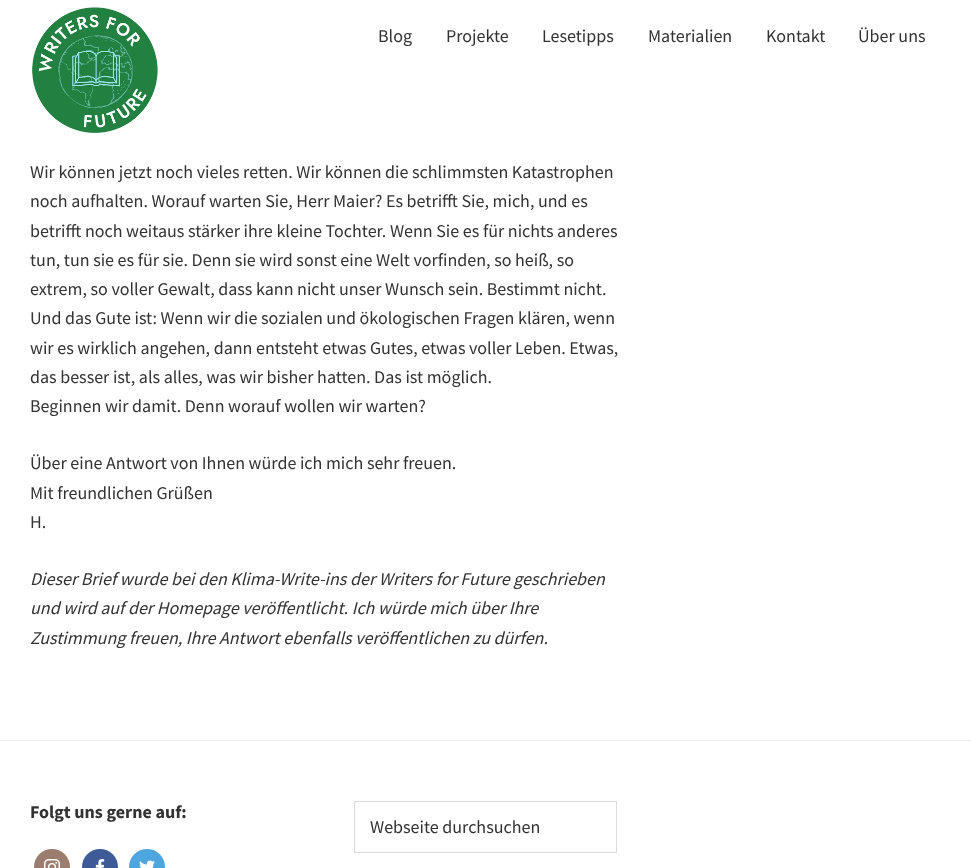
<!DOCTYPE html>
<meta charset="utf-8">
<style>body { margin: 0 } canvas { display: block }</style>
<canvas id="canvas" width="971" height="868"></canvas>
<img id="img1" src="images/1.png" hidden>
<img id="img2" src="images/2.png" hidden>
<img id="img3" src="images/3.png" hidden>
<img id="img4" src="images/4.png" hidden>
<script>
window.onload = function () {
    const canvas = document.getElementById('canvas');
    const context = canvas.getContext('2d');
    context.miterLimit = 4;
    context.fontKerning = 'normal';

    context.fillStyle = 'rgb(255, 255, 255)';
    context.fillRect(0, 0, 971, 868);
    context.drawImage(document.getElementById('img1'), 32, 7, 126, 126);
    context.fillStyle = 'rgb(238, 238, 238)';
    context.fillRect(0, 740, 971, 1);
    context.fillStyle = 'rgb(156, 124, 110)';
    context.beginPath();
    context.arc(52, 867, 18, 0, 2 * Math.PI);
    context.fill();
    context.drawImage(document.getElementById('img2'), 44, 859, 16, 9);
    context.fillStyle = 'rgb(62, 91, 152)';
    context.beginPath();
    context.arc(100, 867, 18, 0, 2 * Math.PI);
    context.fill();
    context.drawImage(document.getElementById('img3'), 95, 859, 10, 9);
    context.fillStyle = 'rgb(77, 167, 222)';
    context.beginPath();
    context.arc(147, 867, 18, 0, 2 * Math.PI);
    context.fill();
    context.drawImage(document.getElementById('img4'), 139, 860, 16, 8);
    context.strokeStyle = 'rgb(221, 221, 221)';
    context.strokeRect(354.5, 801.5, 262, 51);
    context.font = '18px Source Sans Pro';
    context.fillStyle = 'rgb(51, 51, 51)';
    context.fillText('Blog', 378, 42);
    context.fillText('Projekte', 446, 42);
    context.fillText('Lesetipps', 542, 42);
    context.fillText('Materialien', 648, 42);
    context.fillText('Kontakt', 766, 42);
    context.fillText('Über uns', 858, 42);
    context.fillText('Wir können jetzt noch vieles retten. Wir können die schlimmsten Katastrophen', 30, 178);
    context.fillText('noch aufhalten. Worauf warten Sie, Herr Maier? Es betrifft Sie, mich, und es', 30, 207);
    context.fillText('betrifft noch weitaus stärker ihre kleine Tochter. Wenn Sie es für nichts anderes', 30, 237);
    context.fillText('tun, tun sie es für sie. Denn sie wird sonst eine Welt vorfinden, so heiß, so', 30, 266);
    context.fillText('extrem, so voller Gewalt, dass kann nicht unser Wunsch sein. Bestimmt nicht.', 30, 295);
    context.fillText('Und das Gute ist: Wenn wir die sozialen und ökologischen Fragen klären, wenn', 30, 324);
    context.fillText('wir es wirklich angehen, dann entsteht etwas Gutes, etwas voller Leben. Etwas,', 30, 354);
    context.fillText('das besser ist, als alles, was wir bisher hatten. Das ist möglich.', 30, 383);
    context.fillText('Beginnen wir damit. Denn worauf wollen wir warten?', 30, 412);
    context.fillText('Über eine Antwort von Ihnen würde ich mich sehr freuen.', 30, 469);
    context.fillText('Mit freundlichen Grüßen', 30, 499);
    context.fillText('H.', 30, 528);
    context.font = 'italic 18px Source Sans Pro';
    context.fillText('Dieser Brief wurde bei den Klima-Write-ins der Writers for Future geschrieben', 30, 585);
    context.fillText('und wird auf der Homepage veröffentlicht. Ich würde mich über Ihre', 30, 614);
    context.fillText('Zustimmung freuen, Ihre Antwort ebenfalls veröffentlichen zu dürfen.', 30, 644);
    context.font = 'bold 18px Source Sans Pro';
    context.fillText('Folgt uns gerne auf:', 30, 818);
    context.font = '18px Source Sans Pro';
    context.fillText('Webseite durchsuchen', 370, 833);
};
</script>
